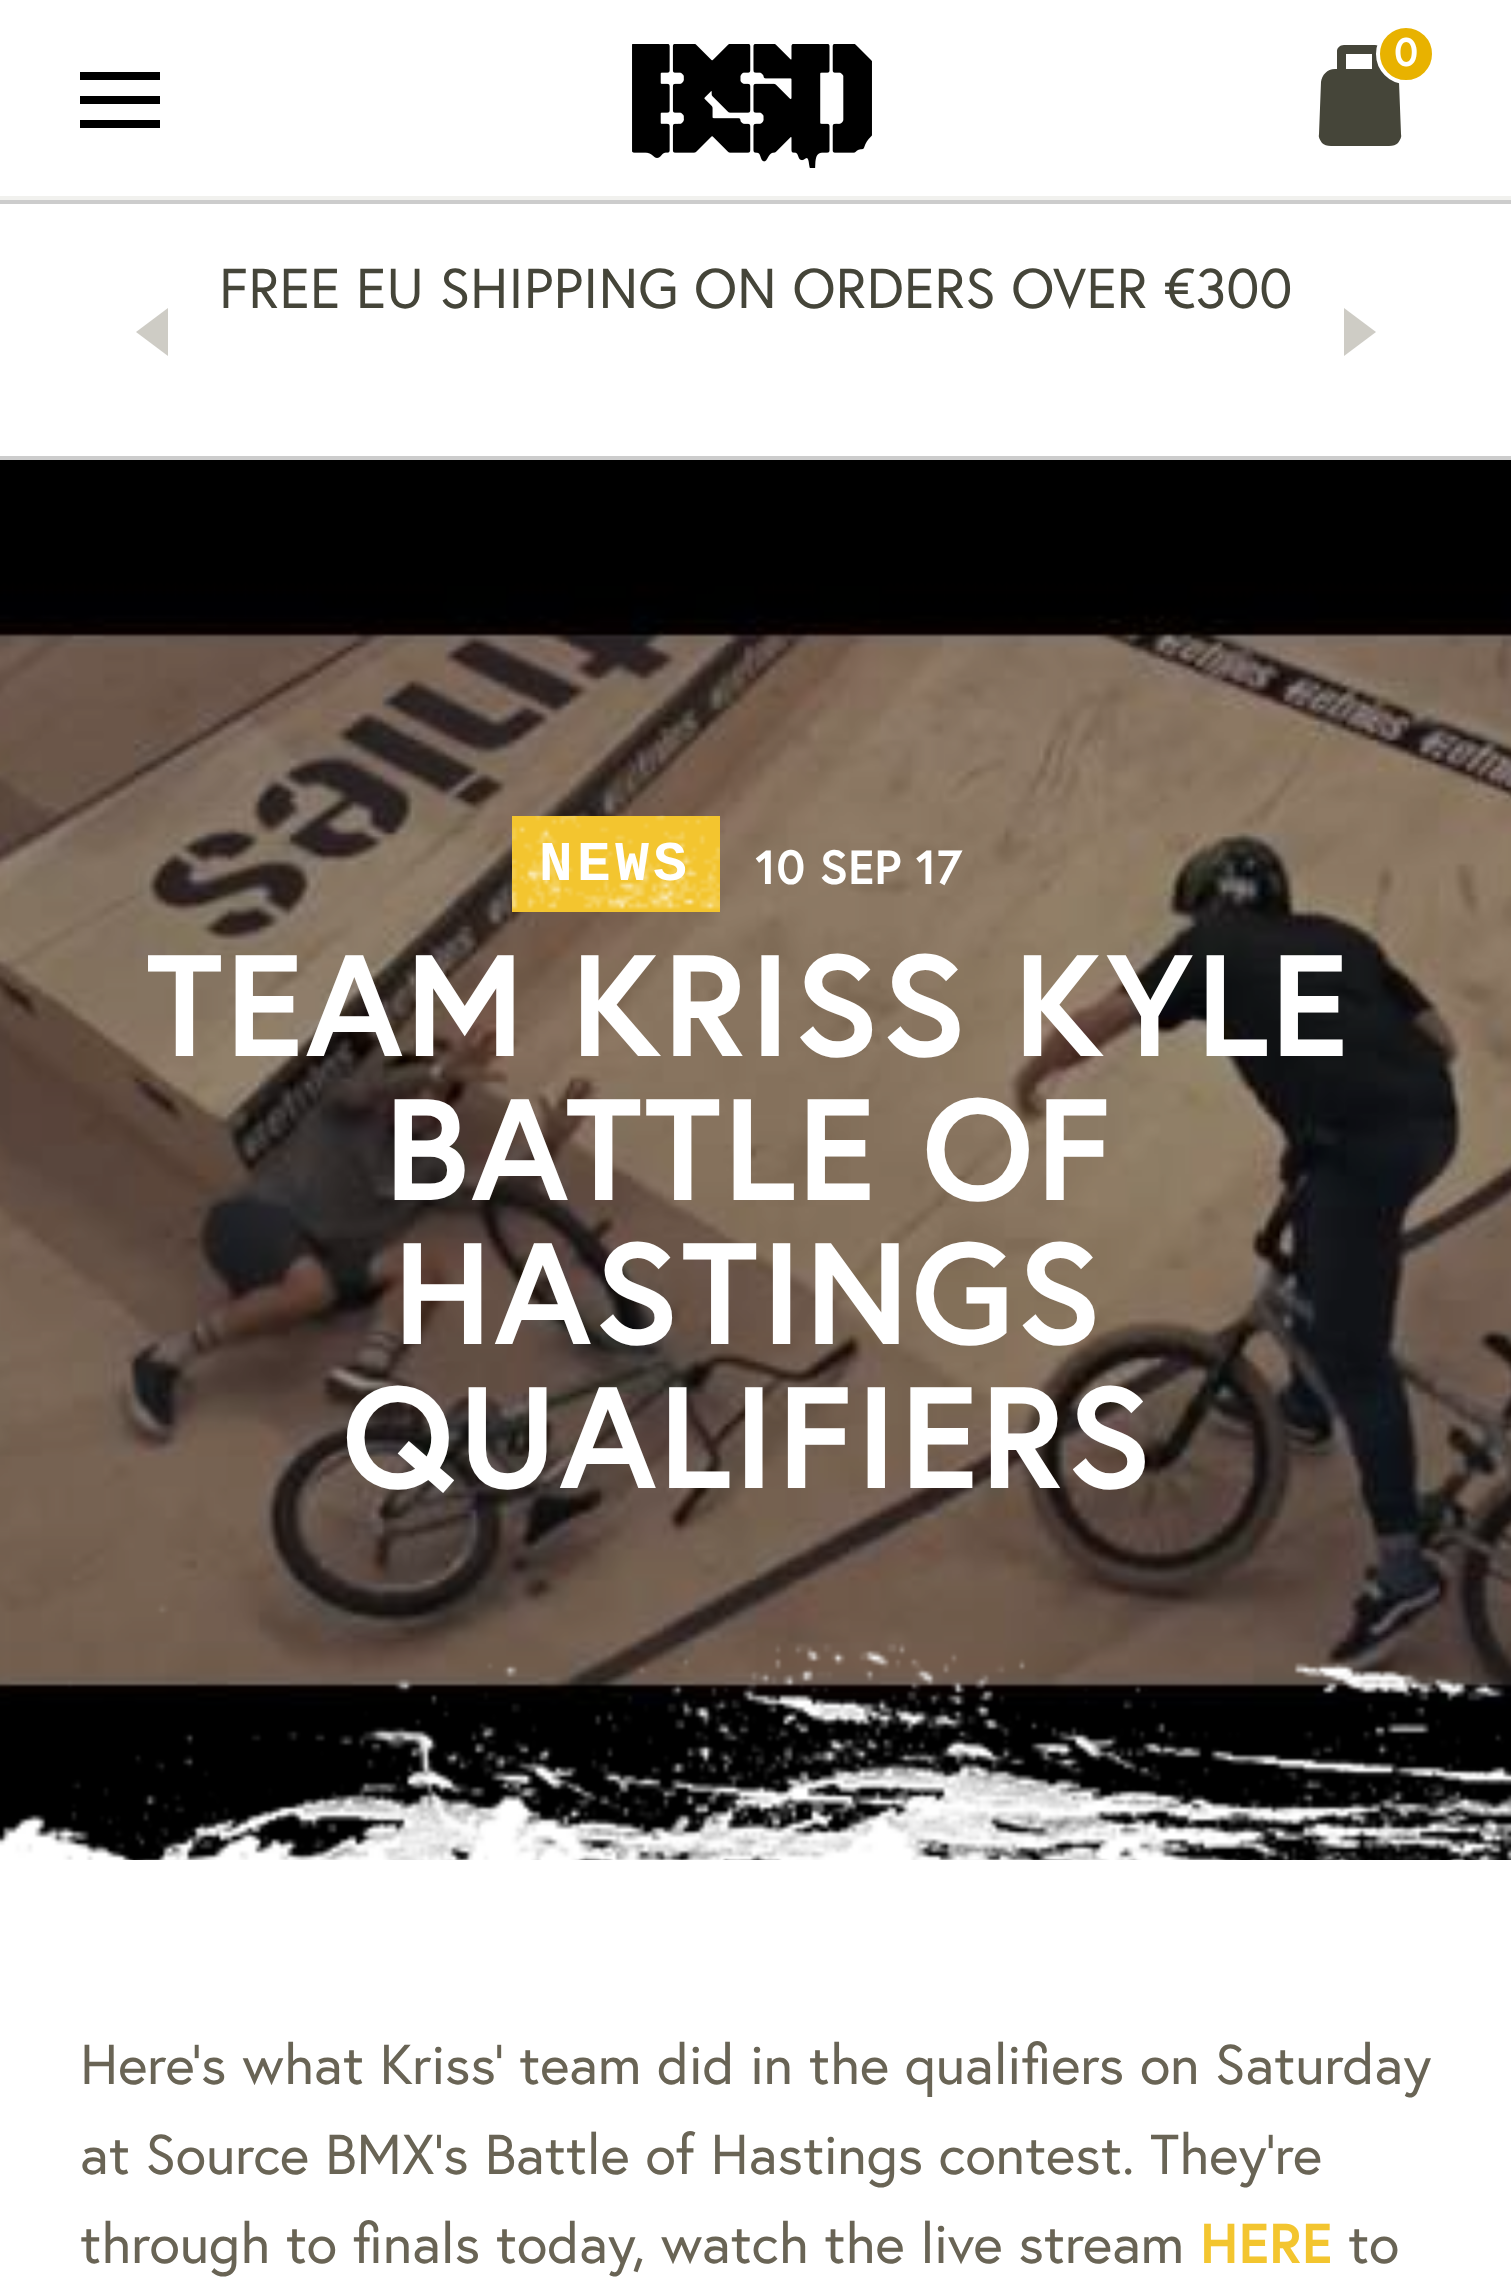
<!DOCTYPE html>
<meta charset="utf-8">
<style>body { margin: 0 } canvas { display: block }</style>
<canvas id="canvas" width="1511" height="2287"></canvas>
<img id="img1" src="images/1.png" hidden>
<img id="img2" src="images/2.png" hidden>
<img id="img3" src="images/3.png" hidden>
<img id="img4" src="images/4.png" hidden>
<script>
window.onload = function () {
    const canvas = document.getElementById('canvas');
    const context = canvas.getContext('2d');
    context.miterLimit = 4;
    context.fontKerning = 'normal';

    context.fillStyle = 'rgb(255, 255, 255)';
    context.fillRect(0, 0, 1511, 2287);
    context.fillStyle = 'rgb(241, 241, 238)';
    context.fillRect(0, 196, 1511, 4);
    context.fillStyle = 'rgb(0, 0, 0)';
    context.fillRect(80, 72, 80, 8);
    context.fillRect(80, 96, 80, 8);
    context.fillRect(80, 120, 80, 8);
    context.drawImage(document.getElementById('img1'), 632, 44, 240, 124);
    context.fillStyle = 'rgb(69, 69, 57)';
    context.beginPath();
    context.moveTo(1331, 146);
    context.bezierCurveTo(1327, 146, 1324, 145, 1322, 143);
    context.bezierCurveTo(1320, 140, 1318, 137, 1319, 134);
    context.lineTo(1321, 82);
    context.bezierCurveTo(1322, 75, 1327, 69, 1335, 69);
    context.lineTo(1385, 69);
    context.bezierCurveTo(1392, 69, 1398, 75, 1399, 82);
    context.lineTo(1401, 134);
    context.bezierCurveTo(1402, 137, 1400, 140, 1398, 143);
    context.bezierCurveTo(1396, 145, 1393, 146, 1389, 146);
    context.closePath();
    context.fill();
    context.beginPath();
    context.moveTo(1381, 81);
    context.lineTo(1372, 81);
    context.lineTo(1372, 54);
    context.lineTo(1346, 54);
    context.lineTo(1346, 81);
    context.lineTo(1337, 81);
    context.lineTo(1337, 51);
    context.bezierCurveTo(1337, 48, 1340, 45, 1344, 45);
    context.lineTo(1375, 45);
    context.bezierCurveTo(1379, 45, 1381, 48, 1381, 51);
    context.closePath();
    context.fill();
    context.fillStyle = 'rgb(232, 178, 0)';
    context.beginPath();
    context.arc(1406, 54, 28, 0, 2 * Math.PI);
    context.fill();
    context.strokeStyle = 'rgb(255, 255, 255)';
    context.lineWidth = 4;
    context.stroke();
    context.fillStyle = 'rgb(204, 204, 204)';
    context.fillRect(0, 200, 1511, 4);
    context.fillRect(0, 456, 1511, 4);
    context.fillStyle = 'rgb(206, 204, 197)';
    context.beginPath();
    context.moveTo(168, 308);
    context.lineTo(168, 356);
    context.lineTo(136, 332);
    context.closePath();
    context.fill();
    context.beginPath();
    context.moveTo(1344, 356);
    context.lineTo(1344, 308);
    context.lineTo(1376, 332);
    context.closePath();
    context.fill();
    context.drawImage(document.getElementById('img2'), 0, 460, 1511, 1400);
    context.fillStyle = 'rgb(243, 197, 47)';
    context.fillRect(512, 816, 208, 96);
    context.drawImage(document.getElementById('img3'), 512, 815, 208, 97);
    context.drawImage(document.getElementById('img4'), 0, 1416, 1511, 444);
    context.font = 'bold 40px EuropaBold';
    context.fillStyle = 'rgb(255, 255, 255)';
    context.fillText('0', 1394, 66);
    context.font = '56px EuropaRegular';
    context.fillStyle = 'rgb(69, 69, 57)';
    context.fillText('FREE EU SHIPPING ON ORDERS OVER €300', 219, 308);
    context.letterSpacing = '4.5px';
    context.font = 'bold 56px Liberation Mono';
    context.fillStyle = 'rgb(255, 255, 255)';
    context.fillText('NEWS', 539, 880);
    context.letterSpacing = '0px';
    context.font = 'bold 48px EuropaBold';
    context.fillText('10 SEP 17', 755, 884);
    context.letterSpacing = '2px';
    context.font = 'bold 144px EuropaBold';
    context.fillText('TEAM KRISS KYLE', 146, 1056);
    context.fillText('BATTLE OF', 384, 1200);
    context.fillText('HASTINGS', 393, 1344);
    context.fillText('QUALIFIERS', 342, 1488);
    context.letterSpacing = '0px';
    context.font = '56px EuropaRegular';
    context.fillStyle = 'rgb(105, 100, 85)';
    context.fillText('Here’s what Kriss’ team did in the qualifiers on Saturday', 80, 2084);
    context.fillText('at Source BMX’s Battle of Hastings contest. They’re', 80, 2174);
    context.fillText('through to finals today, watch the live stream', 80, 2263);
    context.font = 'bold 56px EuropaBold';
    context.fillStyle = 'rgb(243, 197, 47)';
    context.fillText('HERE', 1200, 2263);
    context.font = '56px EuropaRegular';
    context.fillStyle = 'rgb(105, 100, 85)';
    context.fillText('to', 1348, 2263);
};
</script>
